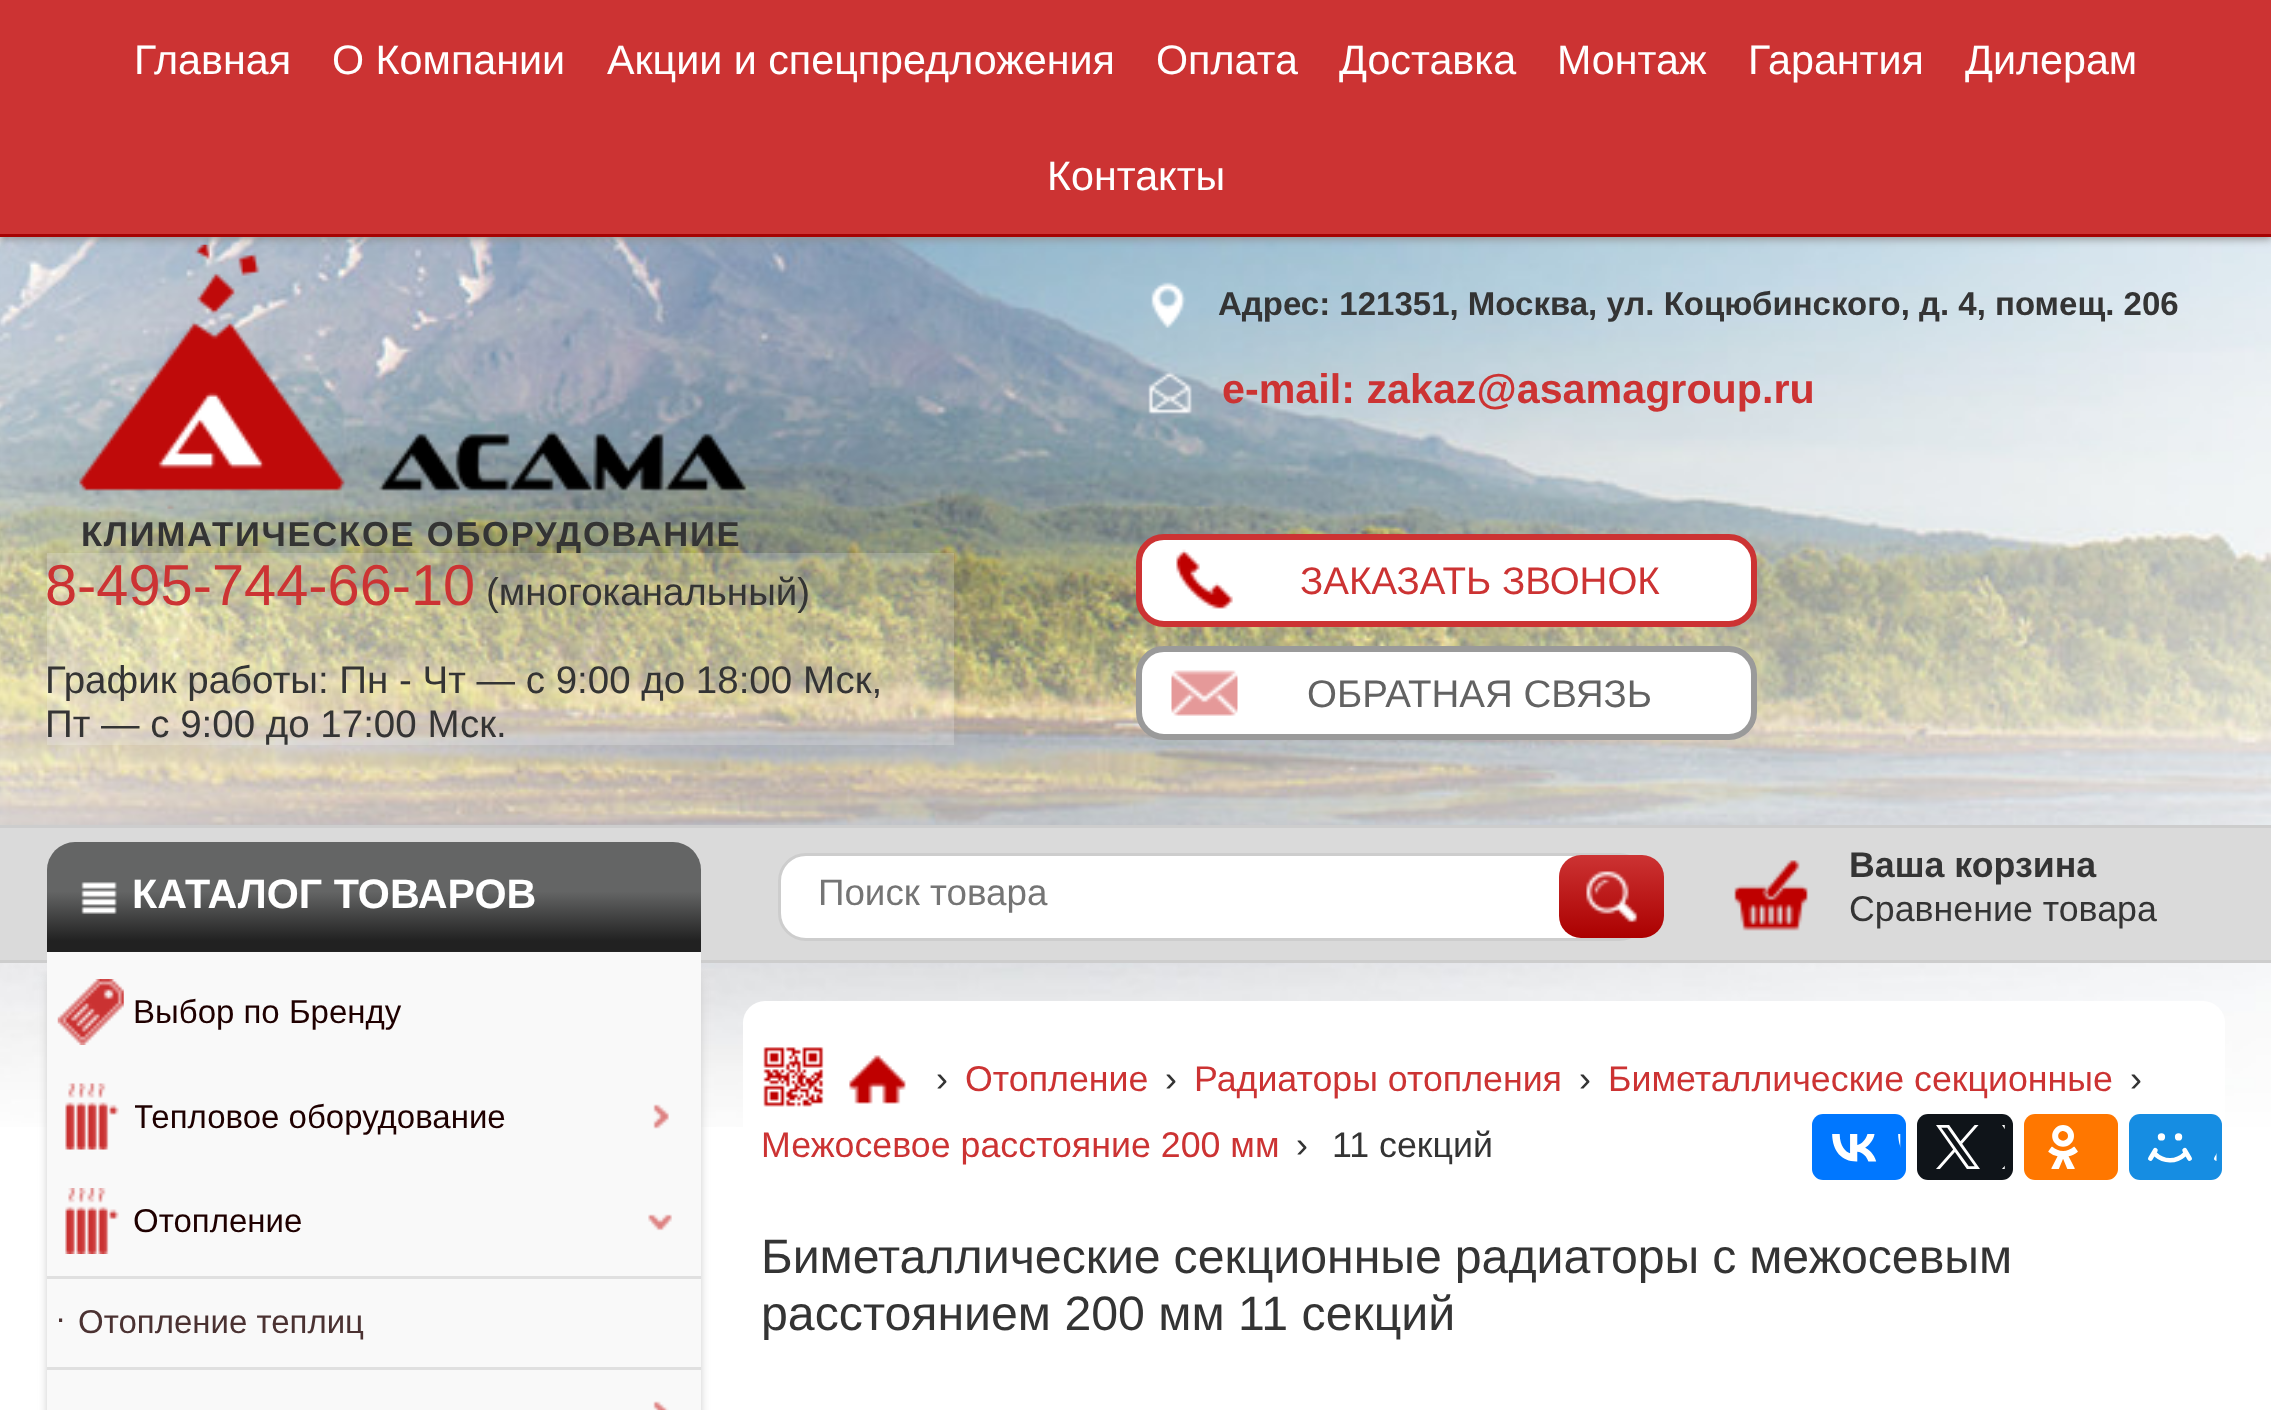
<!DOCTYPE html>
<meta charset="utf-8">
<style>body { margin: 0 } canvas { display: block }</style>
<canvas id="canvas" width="2271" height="1410"></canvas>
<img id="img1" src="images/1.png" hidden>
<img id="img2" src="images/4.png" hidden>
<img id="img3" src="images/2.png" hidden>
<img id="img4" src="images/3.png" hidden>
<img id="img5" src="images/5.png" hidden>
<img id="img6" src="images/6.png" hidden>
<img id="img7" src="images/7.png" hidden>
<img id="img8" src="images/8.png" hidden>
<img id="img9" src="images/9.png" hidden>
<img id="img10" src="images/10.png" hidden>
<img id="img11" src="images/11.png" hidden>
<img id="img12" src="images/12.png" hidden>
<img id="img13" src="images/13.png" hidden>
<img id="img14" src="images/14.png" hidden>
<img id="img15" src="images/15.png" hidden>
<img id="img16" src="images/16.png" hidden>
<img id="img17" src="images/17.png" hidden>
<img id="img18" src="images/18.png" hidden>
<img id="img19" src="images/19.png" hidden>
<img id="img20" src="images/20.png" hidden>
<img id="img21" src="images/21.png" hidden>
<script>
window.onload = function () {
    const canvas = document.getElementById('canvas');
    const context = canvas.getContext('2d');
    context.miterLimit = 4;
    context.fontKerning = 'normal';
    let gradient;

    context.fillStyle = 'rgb(255, 255, 255)';
    context.fillRect(0, 0, 2271, 1410);
    context.drawImage(document.getElementById('img1'), 0, 237, 2271, 890);
    context.drawImage(document.getElementById('img2'), 79, 244, 668, 265);
    context.fillStyle = 'rgb(146, 146, 146)';
    context.filter = 'blur(4px)';
    context.beginPath();
    context.rect(0, 3, 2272, 236);
    context.fill();
    context.filter = 'none';
    context.fillStyle = 'rgb(204, 51, 51)';
    context.fillRect(0, 0, 2271, 234);
    context.fillStyle = 'rgb(166, 3, 3)';
    context.fillRect(0, 234, 2271, 3);
    context.drawImage(document.getElementById('img3'), 1151, 282, 35, 46);
    context.drawImage(document.getElementById('img4'), 1148, 371, 44, 43);
    context.fillStyle = 'rgba(255, 255, 255, 0.2)';
    context.fillRect(47, 553, 907, 192);
    context.fillStyle = 'rgb(255, 255, 255)';
    context.beginPath();
    context.roundRect(1139, 537, 615, 87, 25);
    context.fill();
    context.strokeStyle = 'rgb(204, 51, 51)';
    context.lineWidth = 6;
    context.stroke();
    context.drawImage(document.getElementById('img5'), 1176, 549, 57, 60);
    context.beginPath();
    context.roundRect(1139, 649, 615, 88, 25);
    context.fill();
    context.strokeStyle = 'rgb(154, 154, 154)';
    context.stroke();
    context.drawImage(document.getElementById('img6'), 1171, 670, 67, 46);
    context.fillStyle = 'rgb(218, 218, 218)';
    context.fillRect(0, 828, 2271, 132);
    context.fillStyle = 'rgb(205, 205, 205)';
    context.fillRect(0, 825, 2271, 3);
    context.fillRect(0, 960, 2271, 3);
    gradient = context.createLinearGradient(374, 842, 374, 952);
    gradient.addColorStop(0.45, 'rgb(100, 101, 101)');
    gradient.addColorStop(0.9, 'rgb(33, 33, 33)');
    context.fillStyle = gradient;
    context.beginPath();
    context.roundRect(47, 842, 654, 110, [28, 28, 0, 0]);
    context.fill();
    context.drawImage(document.getElementById('img7'), 81, 882, 36, 32);
    context.fillStyle = 'rgb(255, 255, 255)';
    context.beginPath();
    context.roundRect(779.5, 854.5, 866, 85, 26.5);
    context.fill();
    context.strokeStyle = 'rgb(205, 205, 205)';
    context.lineWidth = 3;
    context.stroke();
    gradient = context.createLinearGradient(1612, 855, 1612, 938);
    gradient.addColorStop(0, 'rgb(204, 51, 51)');
    gradient.addColorStop(1, 'rgb(171, 0, 0)');
    context.fillStyle = gradient;
    context.beginPath();
    context.roundRect(1559, 855, 105, 83, 22);
    context.fill();
    context.drawImage(document.getElementById('img8'), 1586, 871, 52, 52);
    context.drawImage(document.getElementById('img9'), 1734, 860, 74, 71);
    context.fillStyle = 'rgb(205, 205, 205)';
    context.filter = 'blur(4px)';
    context.beginPath();
    context.roundRect(47, 960, 654, 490, 28);
    context.fill();
    context.filter = 'none';
    context.fillStyle = 'rgb(249, 249, 249)';
    context.fillRect(47, 952, 654, 458);
    context.drawImage(document.getElementById('img10'), 57, 979, 67, 66);
    context.drawImage(document.getElementById('img11'), 65, 1083, 54, 67);
    context.drawImage(document.getElementById('img12'), 653, 1104, 16, 25);
    context.drawImage(document.getElementById('img13'), 65, 1188, 54, 66);
    context.drawImage(document.getElementById('img14'), 648, 1214, 24, 17);
    context.fillStyle = 'rgb(224, 224, 224)';
    context.fillRect(47, 1276, 654, 3);
    context.fillRect(47, 1367, 654, 3);
    context.drawImage(document.getElementById('img15'), 653, 1401, 16, 9);
    context.fillStyle = 'rgb(255, 255, 255)';
    context.beginPath();
    context.roundRect(743, 1001, 1482, 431, 22);
    context.fill();
    context.drawImage(document.getElementById('img16'), 763, 1047, 61, 60);
    context.drawImage(document.getElementById('img17'), 849, 1055, 57, 49);
    context.fillStyle = 'rgb(0, 119, 255)';
    context.beginPath();
    context.roundRect(1812, 1114, 94, 66, 11);
    context.fill();
    context.drawImage(document.getElementById('img18'), 1832, 1134, 69, 28);
    context.fillStyle = 'rgb(15, 20, 25)';
    context.beginPath();
    context.roundRect(1917, 1114, 96, 66, 11);
    context.fill();
    context.drawImage(document.getElementById('img19'), 1936, 1125, 69, 44);
    context.fillStyle = 'rgb(255, 119, 0)';
    context.beginPath();
    context.roundRect(2024, 1114, 94, 66, 11);
    context.fill();
    context.drawImage(document.getElementById('img20'), 2048, 1125, 30, 44);
    context.fillStyle = 'rgb(22, 141, 226)';
    context.beginPath();
    context.roundRect(2129, 1114, 93, 66, 11);
    context.fill();
    context.drawImage(document.getElementById('img21'), 2148, 1133, 69, 30);
    context.font = '41.25px Liberation Sans';
    context.fillStyle = 'rgb(255, 255, 255)';
    context.fillText('Главная', 134, 74);
    context.fillText('О Компании', 332, 74);
    context.fillText('Акции и спецпредложения', 607, 74);
    context.fillText('Оплата', 1156, 74);
    context.fillText('Доставка', 1339, 74);
    context.fillText('Монтаж', 1557, 74);
    context.fillText('Гарантия', 1748, 74);
    context.fillText('Дилерам', 1965, 74);
    context.fillText('Контакты', 1047, 190);
    context.font = 'bold 33px Liberation Sans';
    context.fillStyle = 'rgb(52, 52, 52)';
    context.fillText('Адрес: 121351, Москва, ул. Коцюбинского, д. 4, помещ. 206', 1218, 315);
    context.font = 'bold 41.25px Liberation Sans';
    context.fillStyle = 'rgb(204, 51, 51)';
    context.fillText('e-mail: zakaz@asamagroup.ru', 1222, 403);
    context.letterSpacing = '1.75px';
    context.font = 'bold 34.6px Liberation Sans';
    context.fillStyle = 'rgb(52, 52, 52)';
    context.fillText('КЛИМАТИЧЕСКОЕ ОБОРУДОВАНИЕ', 81, 546);
    context.letterSpacing = '0px';
    context.font = '57.75px Liberation Sans';
    context.fillStyle = 'rgb(204, 51, 51)';
    context.fillText('8-495-744-66-10', 45, 605);
    context.font = '38.5px Liberation Sans';
    context.fillStyle = 'rgb(52, 52, 52)';
    context.fillText('(многоканальный)', 486, 605);
    context.fillText('График работы: Пн - Чт — с 9:00 до 18:00 Мск,', 45, 693);
    context.fillText('Пт — с 9:00 до 17:00 Мск.', 45, 737);
    context.fillStyle = 'rgb(204, 51, 51)';
    context.fillText('ЗАКАЗАТЬ ЗВОНОК', 1300, 594);
    context.fillStyle = 'rgb(98, 98, 98)';
    context.fillText('ОБРАТНАЯ СВЯЗЬ', 1307, 707);
    context.font = 'bold 41.25px Liberation Sans';
    context.fillStyle = 'rgb(255, 255, 255)';
    context.fillText('КАТАЛОГ ТОВАРОВ', 132, 908);
    context.font = '36.75px Liberation Sans';
    context.fillStyle = 'rgb(117, 117, 117)';
    context.fillText('Поиск товара', 818, 905);
    context.font = 'bold 35.75px Liberation Sans';
    context.fillStyle = 'rgb(52, 52, 52)';
    context.fillText('Ваша корзина', 1849, 877);
    context.font = '35.75px Liberation Sans';
    context.fillText('Сравнение товара', 1849, 921);
    context.font = '33px Liberation Sans';
    context.fillStyle = 'rgb(31, 0, 0)';
    context.fillText('Выбор по Бренду', 133, 1023);
    context.save();
    context.beginPath();
    context.rect(135, 1084, 478, 66);
    context.clip();
    context.fillText('Тепловое оборудование', 133, 1128);
    context.restore();
    context.fillText('Отопление', 133, 1232);
    context.fillStyle = 'rgb(75, 50, 50)';
    context.fillText('.', 56, 1322);
    context.fillText('Отопление теплиц', 78, 1333);
    context.font = '35.75px Liberation Sans';
    context.fillStyle = 'rgb(52, 52, 52)';
    context.fillText('›', 936, 1091);
    context.fillStyle = 'rgb(204, 51, 51)';
    context.fillText('Отопление', 965, 1091);
    context.fillStyle = 'rgb(52, 52, 52)';
    context.fillText('›', 1165, 1091);
    context.fillStyle = 'rgb(204, 51, 51)';
    context.fillText('Радиаторы отопления', 1194, 1091);
    context.fillStyle = 'rgb(52, 52, 52)';
    context.fillText('›', 1579, 1091);
    context.fillStyle = 'rgb(204, 51, 51)';
    context.fillText('Биметаллические секционные', 1608, 1091);
    context.fillStyle = 'rgb(52, 52, 52)';
    context.fillText('›', 2130, 1091);
    context.fillStyle = 'rgb(204, 51, 51)';
    context.fillText('Межосевое расстояние 200 мм', 761, 1157);
    context.fillStyle = 'rgb(52, 52, 52)';
    context.fillText('›', 1296, 1157);
    context.fillText('11 секций', 1332, 1157);
    context.wordSpacing = '-0.5px';
    context.font = '48.25px Liberation Sans';
    context.fillText('Биметаллические секционные радиаторы с межосевым', 761, 1273);
    context.wordSpacing = '0px';
    context.fillText('расстоянием 200 мм 11 секций', 761, 1330);
};
</script>
